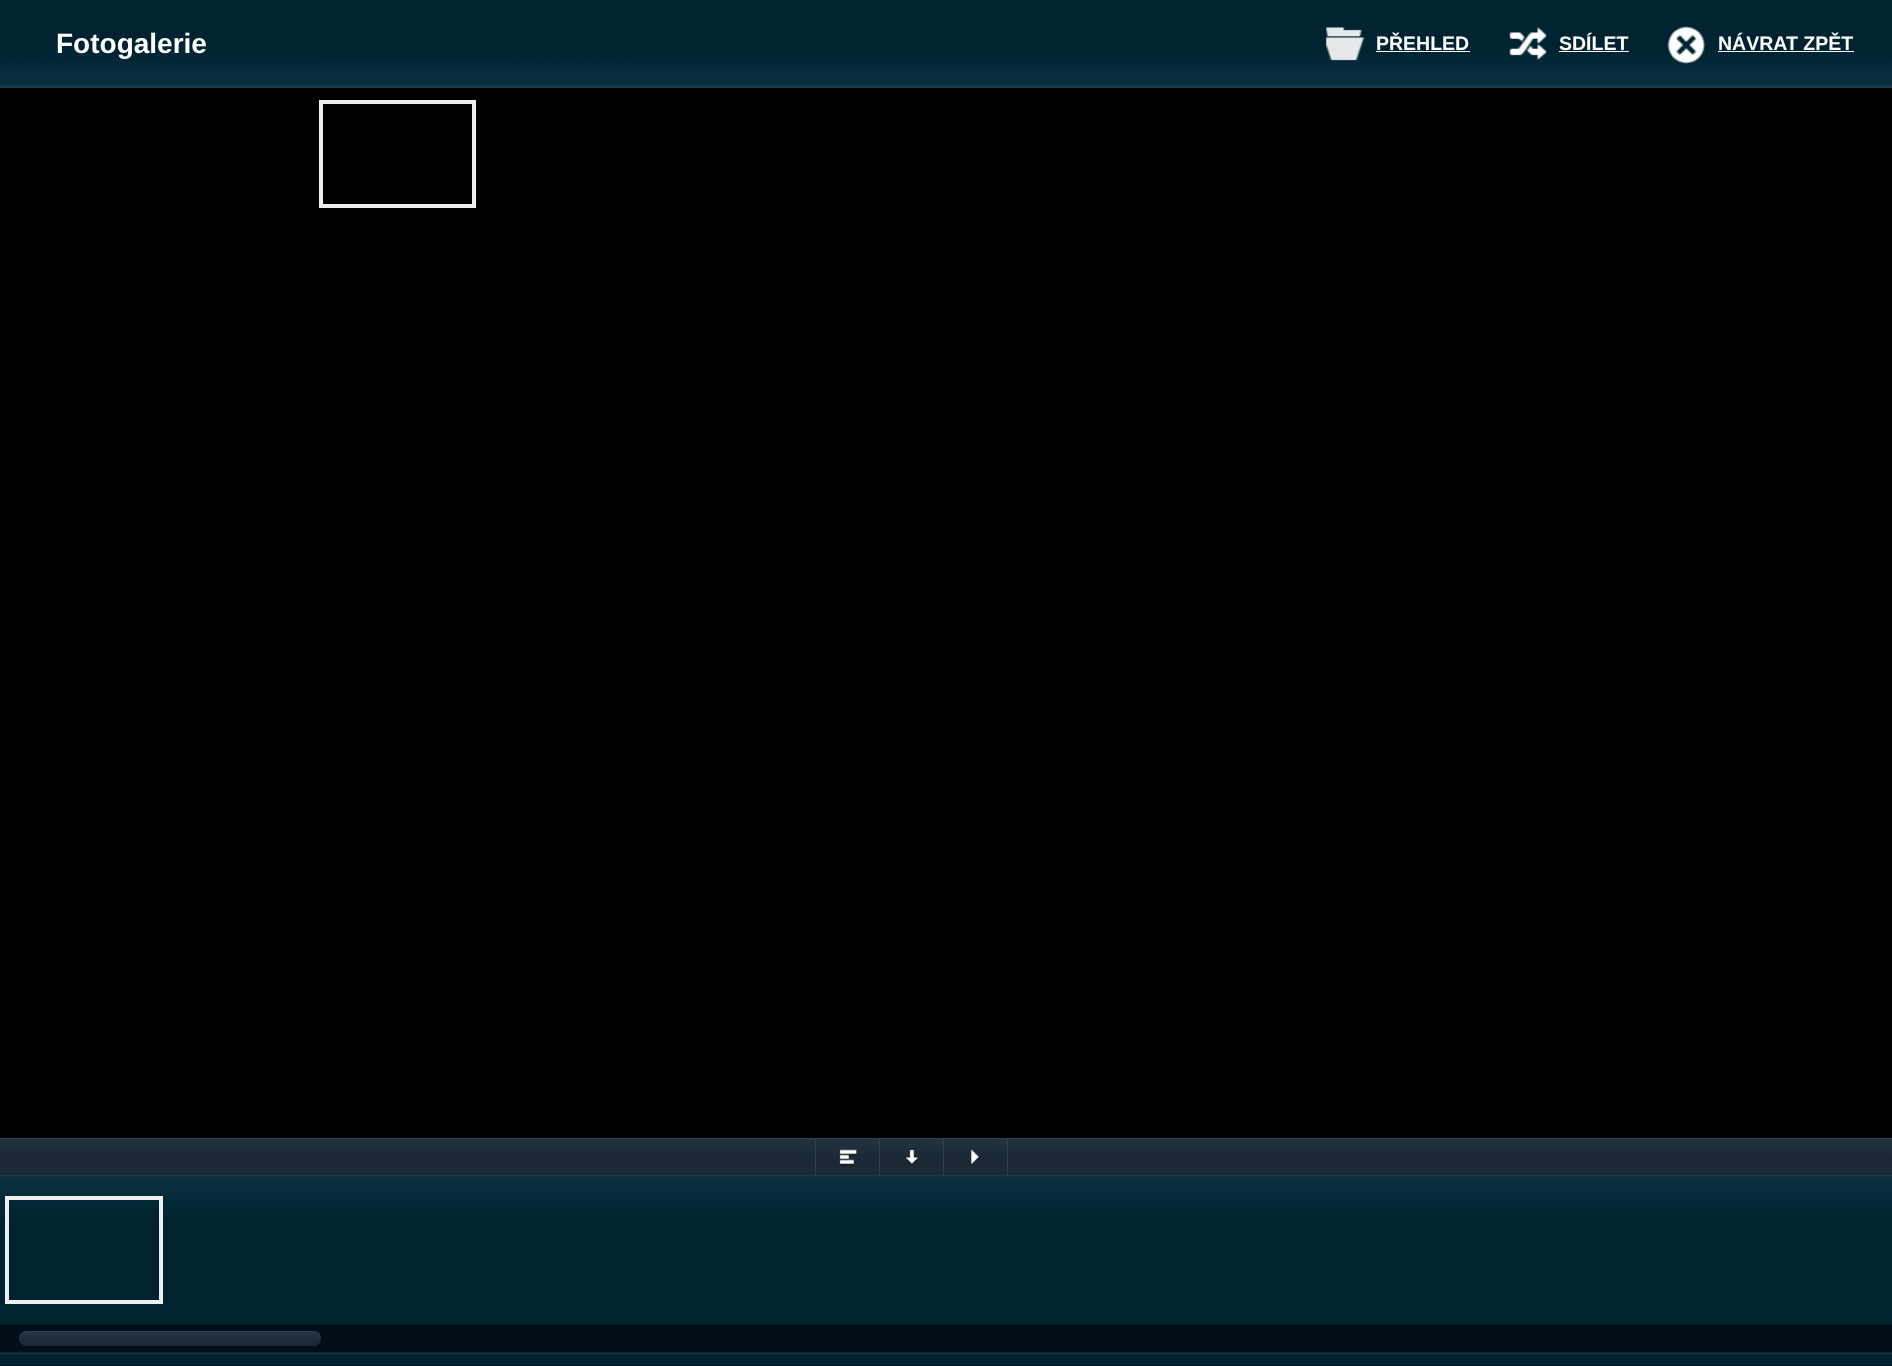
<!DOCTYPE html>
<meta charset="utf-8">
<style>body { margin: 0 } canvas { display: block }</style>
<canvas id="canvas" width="1892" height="1366"></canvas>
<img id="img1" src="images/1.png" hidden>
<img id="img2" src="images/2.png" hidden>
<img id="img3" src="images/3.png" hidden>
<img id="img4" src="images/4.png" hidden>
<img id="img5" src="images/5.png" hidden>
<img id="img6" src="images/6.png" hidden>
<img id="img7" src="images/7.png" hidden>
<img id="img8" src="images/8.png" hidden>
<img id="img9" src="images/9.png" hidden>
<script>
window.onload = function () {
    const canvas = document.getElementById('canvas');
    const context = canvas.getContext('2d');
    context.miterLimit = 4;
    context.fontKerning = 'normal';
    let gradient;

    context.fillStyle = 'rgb(0, 0, 0)';
    context.fillRect(0, 0, 1892, 1366);
    context.fillStyle = 'rgb(34, 49, 63)';
    context.fillRect(0, 0, 1892, 88);
    context.drawImage(document.getElementById('img1'), 0, 0, 1892, 88);
    context.drawImage(document.getElementById('img2'), 1326, 27, 39, 34);
    context.fillStyle = 'rgb(255, 255, 255)';
    context.fillRect(1376, 51, 94, 1);
    context.drawImage(document.getElementById('img3'), 1509, 27, 38, 33);
    context.fillRect(1559, 51, 70, 1);
    context.drawImage(document.getElementById('img4'), 1667, 26, 39, 38);
    context.fillRect(1718, 51, 136, 1);
    context.strokeStyle = 'rgb(238, 238, 238)';
    context.lineWidth = 4;
    context.strokeRect(321, 102, 153, 104);
    gradient = context.createLinearGradient(946, 1175, 946, 1138);
    gradient.addColorStop(0, 'rgb(27, 41, 55)');
    gradient.addColorStop(0.5, 'rgb(27, 41, 55)');
    gradient.addColorStop(1, 'rgb(35, 51, 65)');
    context.fillStyle = gradient;
    context.fillRect(0, 1139, 1892, 36);
    context.fillStyle = 'rgb(49, 65, 79)';
    context.fillRect(0, 1138, 1892, 1);
    context.strokeStyle = 'rgb(49, 64, 80)';
    context.lineWidth = 1;
    context.strokeRect(815.5, 1138.5, 64, 39);
    context.drawImage(document.getElementById('img5'), 839, 1149, 18, 17);
    context.strokeRect(879.5, 1138.5, 64, 39);
    context.drawImage(document.getElementById('img6'), 906, 1149, 12, 17);
    context.strokeRect(943.5, 1138.5, 64, 39);
    context.drawImage(document.getElementById('img7'), 971, 1149, 8, 17);
    context.drawImage(document.getElementById('img8'), 0, 1175, 1892, 191);
    context.strokeStyle = 'rgb(238, 238, 238)';
    context.lineWidth = 4;
    context.strokeRect(7, 1198, 154, 104);
    context.fillStyle = 'rgb(27, 41, 55)';
    context.beginPath();
    context.roundRect(19, 1331, 302, 15, 7.5);
    context.fill();
    context.drawImage(document.getElementById('img9'), 18, 1331, 303, 15);
    context.fillStyle = 'rgb(49, 65, 79)';
    context.beginPath();
    context.moveTo(26, 1332);
    context.lineTo(314, 1332);
    context.bezierCurveTo(318, 1332, 321, 1336, 321, 1339);
    context.bezierCurveTo(321, 1337, 320, 1335, 319, 1333);
    context.bezierCurveTo(317, 1332, 315, 1331, 314, 1331);
    context.lineTo(26, 1331);
    context.bezierCurveTo(23, 1331, 20, 1334, 19, 1337);
    context.lineTo(19, 1339);
    context.bezierCurveTo(19, 1336, 22, 1332, 26, 1332);
    context.closePath();
    context.fill();
    context.font = 'bold 28px Liberation Sans';
    context.fillStyle = 'rgb(255, 255, 255)';
    context.fillText('Fotogalerie', 56, 53);
    context.font = 'bold 19.5px Liberation Sans';
    context.fillText('PŘEHLED', 1376, 50);
    context.fillText('SDÍLET', 1559, 50);
    context.fillText('NÁVRAT ZPĚT', 1718, 50);
};
</script>
